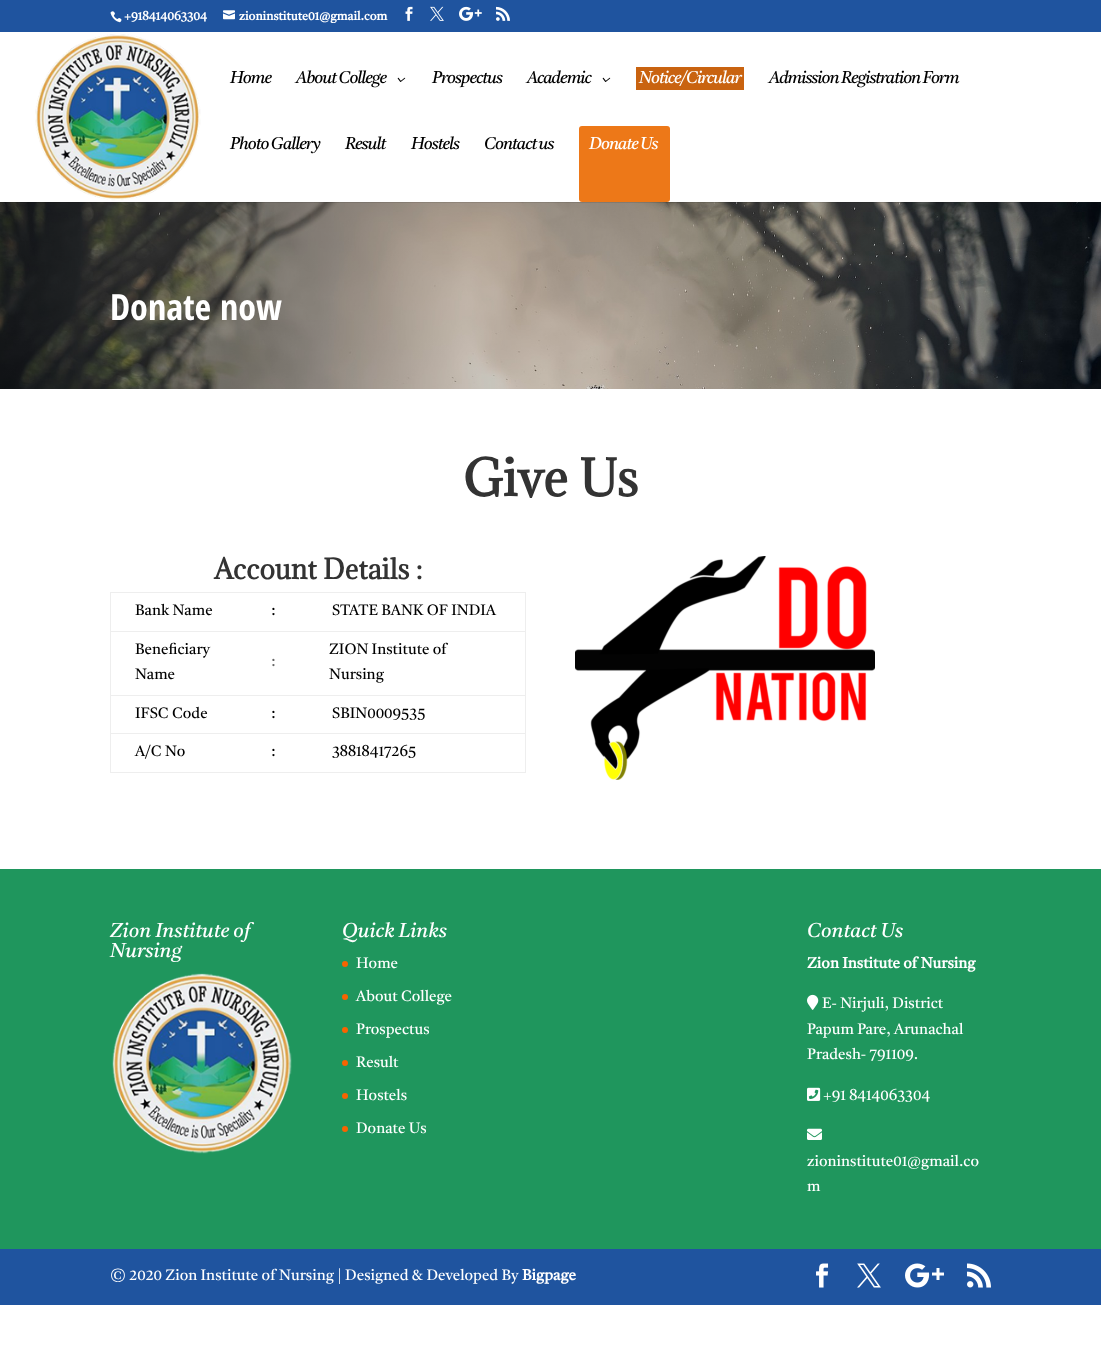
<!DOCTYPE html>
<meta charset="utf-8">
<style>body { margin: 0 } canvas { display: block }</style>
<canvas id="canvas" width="1101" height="1370"></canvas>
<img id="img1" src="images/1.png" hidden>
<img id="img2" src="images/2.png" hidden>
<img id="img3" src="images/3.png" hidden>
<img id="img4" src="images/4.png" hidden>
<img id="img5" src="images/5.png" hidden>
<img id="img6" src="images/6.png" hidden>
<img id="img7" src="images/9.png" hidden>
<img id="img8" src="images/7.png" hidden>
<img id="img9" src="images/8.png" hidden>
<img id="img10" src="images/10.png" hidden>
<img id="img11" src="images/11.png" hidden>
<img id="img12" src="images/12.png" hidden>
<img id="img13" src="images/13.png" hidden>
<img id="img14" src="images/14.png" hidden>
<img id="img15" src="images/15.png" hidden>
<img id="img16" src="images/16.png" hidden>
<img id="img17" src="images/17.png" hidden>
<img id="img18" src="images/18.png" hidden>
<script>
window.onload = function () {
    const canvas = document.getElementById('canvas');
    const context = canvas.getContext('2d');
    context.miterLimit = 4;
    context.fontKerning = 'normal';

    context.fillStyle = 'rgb(255, 255, 255)';
    context.fillRect(0, 0, 1101, 1370);
    context.fillStyle = 'rgb(31, 84, 159)';
    context.fillRect(0, 0, 1101, 32);
    context.drawImage(document.getElementById('img1'), 110, 11, 12, 12);
    context.drawImage(document.getElementById('img2'), 223, 10, 12, 10);
    context.drawImage(document.getElementById('img3'), 405, 6, 8, 15);
    context.drawImage(document.getElementById('img4'), 430, 6, 14, 15);
    context.drawImage(document.getElementById('img5'), 459, 6, 23, 15);
    context.drawImage(document.getElementById('img6'), 496, 6, 14, 15);
    context.drawImage(document.getElementById('img7'), 0, 202, 1101, 187);
    context.fillStyle = 'rgba(0, 0, 0, 0.1)';
    context.fillRect(0, 202, 1078, 1);
    context.drawImage(document.getElementById('img8'), 35, 34, 166, 167);
    context.drawImage(document.getElementById('img9'), 397, 77, 9, 5);
    context.drawImage(document.getElementById('img9'), 602, 77, 9, 5);
    context.fillStyle = 'rgb(201, 99, 16)';
    context.fillRect(636, 67, 108, 23);
    context.fillStyle = 'rgb(237, 120, 24)';
    context.beginPath();
    context.roundRect(579, 126, 91, 76, 3);
    context.fill();
    context.fillStyle = 'rgb(238, 238, 238)';
    context.fillRect(110, 592, 416, 1);
    context.fillRect(525, 592, 1, 181);
    context.fillRect(110, 772, 416, 1);
    context.fillRect(110, 592, 1, 181);
    context.fillRect(110, 631, 416, 1);
    context.fillRect(110, 695, 416, 1);
    context.fillRect(110, 733, 416, 1);
    context.drawImage(document.getElementById('img10'), 575, 556, 300, 224);
    context.fillStyle = 'rgb(31, 150, 93)';
    context.fillRect(0, 869, 1101, 380);
    context.drawImage(document.getElementById('img11'), 112, 973, 180, 181);
    context.fillStyle = 'rgb(248, 99, 0)';
    context.beginPath();
    context.arc(345, 964, 3, 0, 2 * Math.PI);
    context.fill();
    context.beginPath();
    context.arc(345, 997, 3, 0, 2 * Math.PI);
    context.fill();
    context.beginPath();
    context.arc(345, 1030, 3, 0, 2 * Math.PI);
    context.fill();
    context.beginPath();
    context.arc(345, 1063, 3, 0, 2 * Math.PI);
    context.fill();
    context.beginPath();
    context.arc(345, 1096, 3, 0, 2 * Math.PI);
    context.fill();
    context.beginPath();
    context.arc(345, 1129, 3, 0, 2 * Math.PI);
    context.fill();
    context.drawImage(document.getElementById('img12'), 807, 994, 12, 16);
    context.drawImage(document.getElementById('img13'), 807, 1087, 14, 14);
    context.drawImage(document.getElementById('img14'), 807, 1128, 15, 12);
    context.fillStyle = 'rgb(31, 84, 159)';
    context.fillRect(0, 1249, 1101, 56);
    context.drawImage(document.getElementById('img15'), 816, 1263, 13, 25);
    context.drawImage(document.getElementById('img16'), 857, 1263, 24, 25);
    context.drawImage(document.getElementById('img17'), 905, 1263, 39, 25);
    context.drawImage(document.getElementById('img18'), 967, 1263, 24, 25);
    context.font = 'bold 12px Castoro';
    context.fillStyle = 'rgb(255, 255, 255)';
    context.fillText('+918414063304', 124, 20);
    context.fillText('zioninstitute01@gmail.com', 239, 20);
    context.letterSpacing = '-1px';
    context.font = 'italic 17px Castoro';
    context.fillStyle = 'rgb(0, 0, 0)';
    context.fillText('Home', 230, 83);
    context.fillText('About College', 296, 83);
    context.fillText('Prospectus', 432, 83);
    context.fillText('Academic', 527, 83);
    context.fillStyle = 'rgb(255, 255, 255)';
    context.fillText('Notice/Circular', 639, 83);
    context.fillStyle = 'rgb(0, 0, 0)';
    context.fillText('Admission Registration Form', 769, 83);
    context.fillText('Photo Gallery', 230, 149);
    context.fillText('Result', 345, 149);
    context.fillText('Hostels', 411, 149);
    context.fillText('Contact us', 484, 149);
    context.fillStyle = 'rgb(255, 255, 255)';
    context.fillText('Donate Us', 589, 149);
    context.letterSpacing = '0px';
    context.font = 'bold 36px Open Sans Condensed';
    context.fillText('Donate now', 110, 320);
    context.font = 'bold 47px Adamina';
    context.fillStyle = 'rgb(51, 51, 51)';
    context.fillText('Give Us', 463, 496);
    context.font = 'bold 26px Adamina';
    context.fillText('Account Details :', 214, 579);
    context.font = '15px Castoro';
    context.fillStyle = 'rgb(0, 0, 0)';
    context.fillText('Bank Name', 135, 615);
    context.fillText(':', 271, 615);
    context.fillText('STATE BANK OF INDIA', 332, 615);
    context.fillText('Beneficiary', 135, 654);
    context.fillText('Name', 135, 679);
    context.fillStyle = 'rgb(102, 102, 102)';
    context.fillText(':', 271, 666);
    context.fillStyle = 'rgb(0, 0, 0)';
    context.fillText('ZION Institute of', 329, 654);
    context.fillText('Nursing', 329, 679);
    context.fillText('IFSC Code', 135, 718);
    context.fillText(':', 271, 718);
    context.fillText('SBIN0009535', 332, 718);
    context.fillText('A/C No', 135, 756);
    context.fillText(':', 271, 756);
    context.fillText('38818417265', 332, 756);
    context.font = 'italic 20px Castoro';
    context.fillStyle = 'rgb(255, 255, 255)';
    context.fillText('Zion Institute of', 110, 937);
    context.fillText('Nursing', 110, 957);
    context.fillText('Quick Links', 342, 937);
    context.font = '15px Castoro';
    context.fillText('Home', 356, 968);
    context.fillText('About College', 356, 1001);
    context.fillText('Prospectus', 356, 1034);
    context.fillText('Result', 356, 1067);
    context.fillText('Hostels', 356, 1100);
    context.fillText('Donate Us', 356, 1133);
    context.font = 'italic 20px Castoro';
    context.fillText('Contact Us', 807, 937);
    context.font = 'bold 15px Castoro';
    context.fillText('Zion Institute of Nursing', 807, 968);
    context.font = '15px Castoro';
    context.fillText('E- Nirjuli, District', 822, 1008);
    context.fillText('Papum Pare, Arunachal', 807, 1034);
    context.fillText('Pradesh- 791109.', 807, 1059);
    context.fillText('+91 8414063304', 823, 1100);
    context.fillText('zioninstitute01@gmail.co', 807, 1166);
    context.fillText('m', 807, 1191);
    context.fillText('© 2020 Zion Institute of Nursing | Designed & Developed By', 110, 1280);
    context.font = 'bold 15px Castoro';
    context.fillText('Bigpage', 522, 1280);
};
</script>
